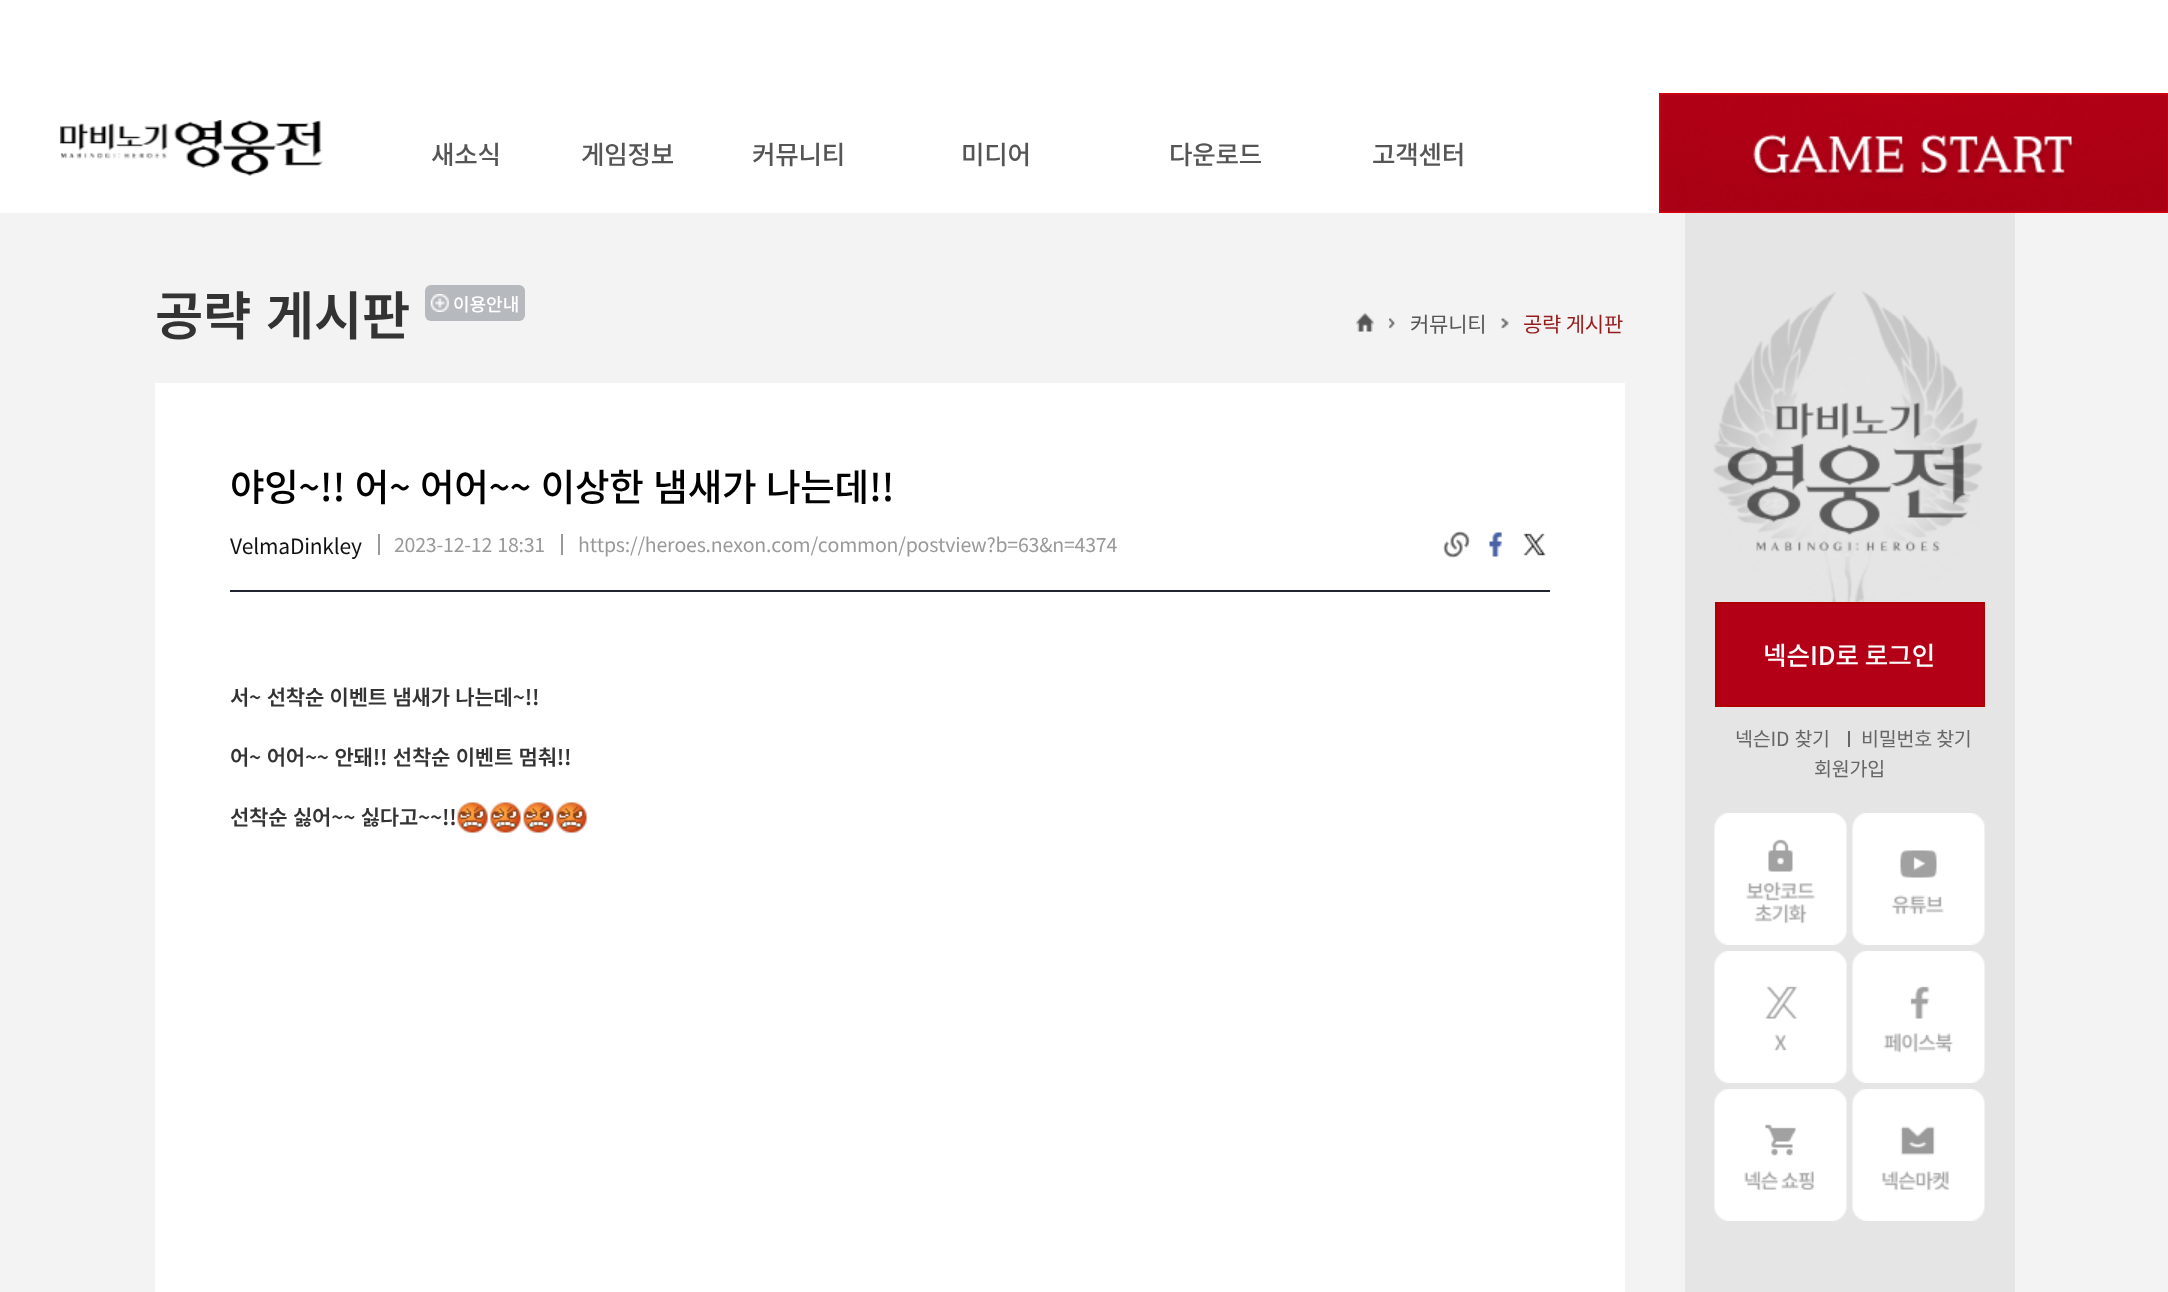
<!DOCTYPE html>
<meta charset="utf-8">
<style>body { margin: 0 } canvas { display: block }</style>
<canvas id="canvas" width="2168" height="1292"></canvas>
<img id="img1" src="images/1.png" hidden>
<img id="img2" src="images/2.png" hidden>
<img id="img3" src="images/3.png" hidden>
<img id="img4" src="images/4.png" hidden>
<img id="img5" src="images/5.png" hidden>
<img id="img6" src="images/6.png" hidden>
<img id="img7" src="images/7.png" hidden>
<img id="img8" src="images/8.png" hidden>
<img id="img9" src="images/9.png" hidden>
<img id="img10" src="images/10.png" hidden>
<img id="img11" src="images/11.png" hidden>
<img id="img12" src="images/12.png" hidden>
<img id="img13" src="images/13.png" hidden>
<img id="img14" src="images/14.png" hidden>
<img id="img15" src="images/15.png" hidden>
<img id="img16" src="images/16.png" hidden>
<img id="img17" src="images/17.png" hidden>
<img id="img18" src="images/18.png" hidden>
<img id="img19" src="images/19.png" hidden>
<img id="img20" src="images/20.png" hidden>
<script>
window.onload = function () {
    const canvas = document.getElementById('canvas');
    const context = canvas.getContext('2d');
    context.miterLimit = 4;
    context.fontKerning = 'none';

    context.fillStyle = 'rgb(255, 255, 255)';
    context.fillRect(0, 0, 2168, 1292);
    context.fillStyle = 'rgb(243, 243, 243)';
    context.fillRect(0, 213, 2168, 1079);
    context.drawImage(document.getElementById('img1'), 60, 120, 263, 56);
    context.drawImage(document.getElementById('img2'), 1659, 93, 509, 120);
    context.fillStyle = 'rgb(182, 185, 189)';
    context.beginPath();
    context.roundRect(425, 285, 100, 36, 6);
    context.fill();
    context.drawImage(document.getElementById('img3'), 430, 294, 19, 18);
    context.drawImage(document.getElementById('img4'), 1356, 313, 18, 19);
    context.drawImage(document.getElementById('img5'), 1389, 318, 6, 11);
    context.drawImage(document.getElementById('img6'), 1501, 318, 8, 11);
    context.fillStyle = 'rgb(255, 255, 255)';
    context.fillRect(155, 383, 1470, 909);
    context.fillStyle = 'rgb(31, 36, 48)';
    context.fillRect(230, 590, 1320, 2);
    context.fillStyle = 'rgb(153, 153, 153)';
    context.fillRect(378, 534, 2, 21);
    context.fillRect(561, 534, 2, 21);
    context.drawImage(document.getElementById('img7'), 1443, 531, 28, 27);
    context.drawImage(document.getElementById('img8'), 1489, 532, 13, 25);
    context.drawImage(document.getElementById('img9'), 1523, 533, 23, 23);
    context.drawImage(document.getElementById('img10'), 457, 802, 31, 31);
    context.drawImage(document.getElementById('img11'), 490, 802, 31, 31);
    context.drawImage(document.getElementById('img12'), 523, 802, 31, 31);
    context.drawImage(document.getElementById('img13'), 556, 802, 31, 31);
    context.fillStyle = 'rgb(229, 229, 229)';
    context.fillRect(1685, 213, 330, 1079);
    context.drawImage(document.getElementById('img14'), 1713, 291, 270, 311);
    context.fillStyle = 'rgb(180, 0, 22)';
    context.beginPath();
    context.rect(1716, 603, 268, 103);
    context.fill();
    context.strokeStyle = 'rgb(174, 0, 0)';
    context.lineWidth = 2;
    context.stroke();
    context.fillStyle = 'rgb(102, 102, 102)';
    context.fillRect(1848, 731, 2, 16);
    context.drawImage(document.getElementById('img15'), 1714, 813, 133, 132);
    context.drawImage(document.getElementById('img16'), 1852, 813, 133, 132);
    context.drawImage(document.getElementById('img17'), 1714, 951, 133, 132);
    context.drawImage(document.getElementById('img18'), 1852, 951, 133, 132);
    context.drawImage(document.getElementById('img19'), 1714, 1089, 133, 132);
    context.drawImage(document.getElementById('img20'), 1852, 1089, 133, 132);
    context.letterSpacing = '-0.2px';
    context.font = '500 25.5px Noto Sans KR';
    context.fillStyle = 'rgb(85, 85, 85)';
    context.fillText('새소식', 431, 164);
    context.fillText('게임정보', 581, 164);
    context.fillText('커뮤니티', 752, 164);
    context.fillText('미디어', 961, 164);
    context.fillText('다운로드', 1169, 164);
    context.fillText('고객센터', 1372, 164);
    context.wordSpacing = '3px';
    context.font = '600 52.5px Noto Sans KR';
    context.fillStyle = 'rgb(51, 51, 51)';
    context.fillText('공략 게시판', 155, 335);
    context.letterSpacing = '0px';
    context.wordSpacing = '0px';
    context.font = '500 18px Noto Sans KR';
    context.fillStyle = 'rgb(255, 255, 255)';
    context.fillText('이용안내', 453, 311);
    context.letterSpacing = '-0.2px';
    context.font = '21px Noto Sans KR';
    context.fillStyle = 'rgb(85, 85, 85)';
    context.fillText('커뮤니티', 1410, 332);
    context.fillStyle = 'rgb(151, 28, 28)';
    context.fillText('공략 게시판', 1523, 332);
    context.wordSpacing = '1.5px';
    context.font = '500 37.5px Noto Sans KR';
    context.fillStyle = 'rgb(0, 0, 0)';
    context.fillText('야잉~!! 어~ 어어~~ 이상한 냄새가 나는데!!', 230, 501);
    context.wordSpacing = '0px';
    context.font = '21px Noto Sans KR';
    context.fillStyle = 'rgb(17, 17, 17)';
    context.fillText('VelmaDinkley', 230, 554);
    context.wordSpacing = '1px';
    context.font = '19.5px Noto Sans KR';
    context.fillStyle = 'rgb(153, 153, 153)';
    context.fillText('2023-12-12 18:31', 394, 552);
    context.wordSpacing = '0px';
    context.fillText('https://heroes.nexon.com/common/postview?b=63&n=4374', 578, 552);
    context.wordSpacing = '1px';
    context.font = '600 21px Noto Sans KR';
    context.fillStyle = 'rgb(51, 51, 51)';
    context.fillText('서~ 선착순 이벤트 냄새가 나는데~!!', 230, 705);
    context.fillText('어~ 어어~~ 안돼!! 선착순 이벤트 멈춰!!', 230, 765);
    context.fillText('선착순 싫어~~ 싫다고~~!!', 230, 825);
    context.letterSpacing = '0px';
    context.wordSpacing = '0px';
    context.font = '500 25.5px Noto Sans KR';
    context.fillStyle = 'rgb(255, 255, 255)';
    context.fillText('넥슨ID로 로그인', 1763, 665);
    context.letterSpacing = '-0.2px';
    context.wordSpacing = '1px';
    context.font = '19.5px Noto Sans KR';
    context.fillStyle = 'rgb(102, 102, 102)';
    context.fillText('넥슨ID 찾기', 1735, 746);
    context.wordSpacing = '0px';
    context.fillText('비밀번호 찾기', 1861, 746);
    context.fillText('회원가입', 1814, 776);
};
</script>
